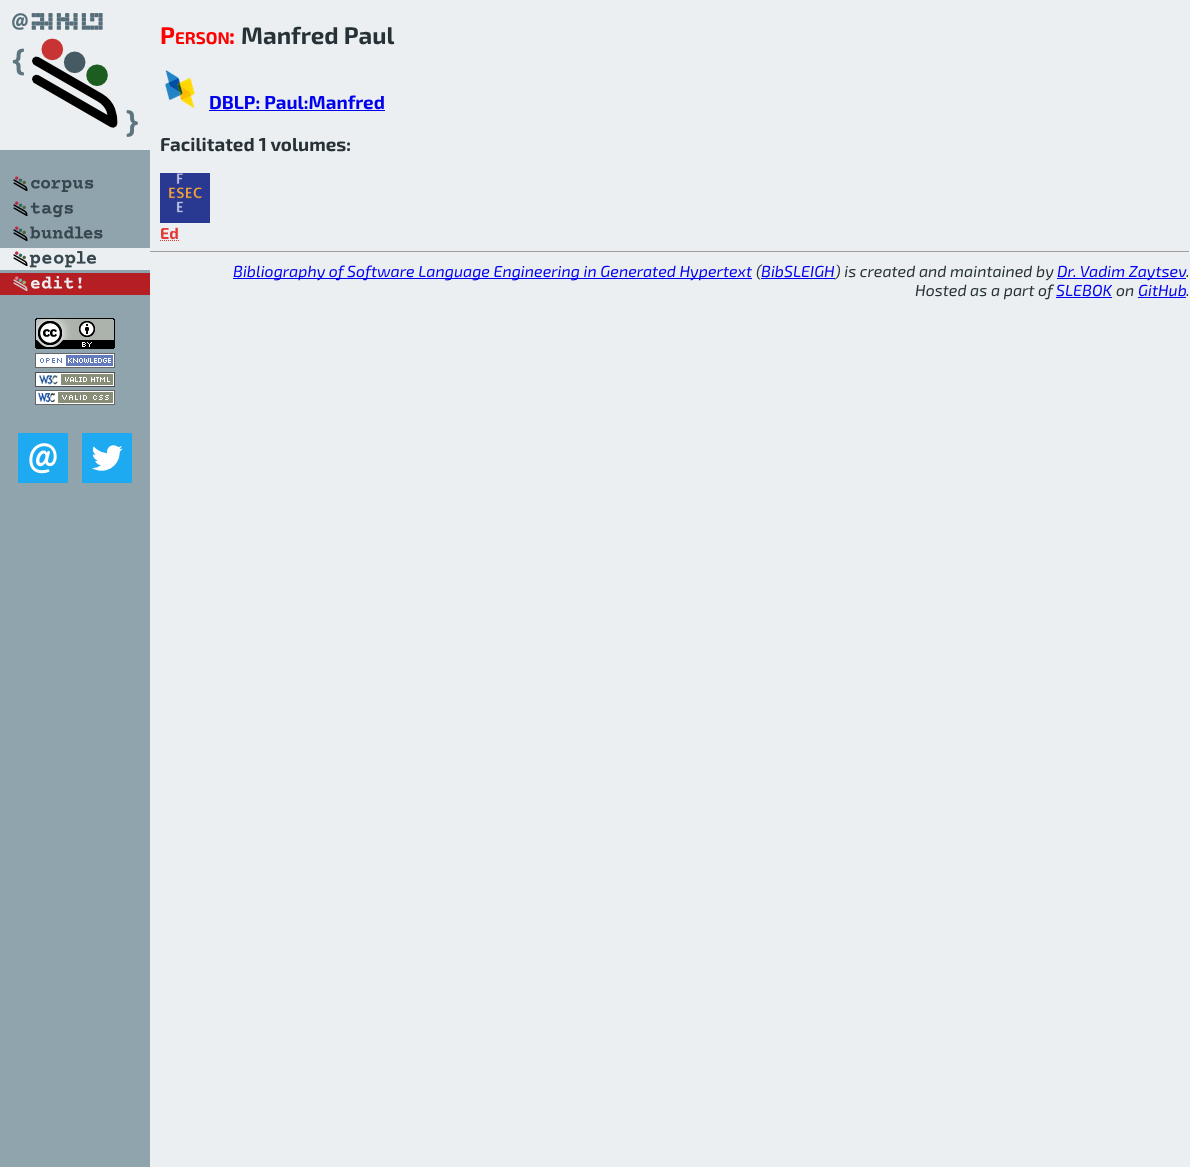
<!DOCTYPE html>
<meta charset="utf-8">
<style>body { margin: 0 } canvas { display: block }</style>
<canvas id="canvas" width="1190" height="1167"></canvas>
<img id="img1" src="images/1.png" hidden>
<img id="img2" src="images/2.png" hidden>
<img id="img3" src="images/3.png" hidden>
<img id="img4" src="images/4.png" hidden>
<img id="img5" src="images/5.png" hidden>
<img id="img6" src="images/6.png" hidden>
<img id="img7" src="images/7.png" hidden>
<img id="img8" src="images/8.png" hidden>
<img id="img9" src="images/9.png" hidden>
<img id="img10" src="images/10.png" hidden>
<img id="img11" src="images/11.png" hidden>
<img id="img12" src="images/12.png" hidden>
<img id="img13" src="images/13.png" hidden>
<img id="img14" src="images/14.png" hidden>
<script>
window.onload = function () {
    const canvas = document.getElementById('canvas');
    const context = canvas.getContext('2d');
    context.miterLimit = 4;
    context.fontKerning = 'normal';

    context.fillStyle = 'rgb(236, 239, 241)';
    context.fillRect(0, 0, 1190, 1167);
    context.fillStyle = 'rgb(144, 164, 174)';
    context.fillRect(0, 150, 150, 1017);
    context.drawImage(document.getElementById('img1'), 0, 0, 150, 150);
    context.drawImage(document.getElementById('img2'), 13, 176, 81, 16);
    context.drawImage(document.getElementById('img3'), 13, 201, 60, 17);
    context.drawImage(document.getElementById('img4'), 13, 226, 90, 16);
    context.drawImage(document.getElementById('img5'), 0, 248, 150, 22);
    context.drawImage(document.getElementById('img6'), 0, 273, 150, 22);
    context.drawImage(document.getElementById('img7'), 35, 318, 80, 31);
    context.drawImage(document.getElementById('img8'), 35, 353, 80, 15);
    context.drawImage(document.getElementById('img9'), 35, 372, 80, 15);
    context.drawImage(document.getElementById('img10'), 35, 390, 80, 15);
    context.drawImage(document.getElementById('img11'), 18, 433, 50, 50);
    context.drawImage(document.getElementById('img12'), 82, 433, 50, 50);
    context.drawImage(document.getElementById('img13'), 165, 70, 30, 38);
    context.fillStyle = 'rgb(0, 0, 238)';
    context.fillRect(209, 110, 176, 1);
    context.drawImage(document.getElementById('img14'), 160, 173, 50, 50);
    context.beginPath();
    context.moveTo(160, 240.5);
    context.lineTo(179, 240.5);
    context.strokeStyle = 'rgb(229, 57, 53)';
    context.setLineDash([1, 1]);
    context.stroke();
    context.fillStyle = 'rgb(159, 159, 159)';
    context.fillRect(150, 251, 1040, 1);
    context.fillStyle = 'rgb(238, 238, 238)';
    context.fillRect(1189, 251, 1, 2);
    context.fillRect(150, 252, 1040, 1);
    context.fillStyle = 'rgb(0, 0, 238)';
    context.fillRect(233, 278, 519, 1);
    context.fillRect(1057, 278, 129, 1);
    context.fillRect(1056, 297, 56, 1);
    context.fillRect(1138, 297, 48, 1);
    context.font = 'bold 24px "Exo 2"';
    context.fillStyle = 'rgb(255, 0, 0)';
    context.fillText('P', 160, 44);
    context.font = 'bold 17px "Exo 2"';
    context.fillText('ERSON', 175, 44);
    context.font = 'bold 24px "Exo 2"';
    context.fillText(':', 229, 44);
    context.fillStyle = 'rgb(38, 50, 56)';
    context.fillText('Manfred Paul', 241, 44);
    context.font = 'bold 18.75px "Exo 2"';
    context.fillStyle = 'rgb(0, 0, 238)';
    context.fillText('DBLP: Paul:Manfred', 209, 109);
    context.fillStyle = 'rgb(38, 50, 56)';
    context.fillText('Facilitated 1 volumes:', 160, 151);
    context.font = 'bold 16px "Exo 2"';
    context.fillStyle = 'rgb(229, 57, 53)';
    context.fillText('Ed', 160, 239);
    context.font = 'italic 16px "Exo 2"';
    context.fillStyle = 'rgb(0, 0, 238)';
    context.fillText('Bibliography of Software Language Engineering in Generated Hypertext', 233, 277);
    context.fillStyle = 'rgb(38, 50, 56)';
    context.fillText('(', 756, 277);
    context.fillStyle = 'rgb(0, 0, 238)';
    context.fillText('BibSLEIGH', 761, 277);
    context.fillRect(761, 278, 74, 1);
    context.fillStyle = 'rgb(38, 50, 56)';
    context.fillText(') is created and maintained by', 835, 277);
    context.fillStyle = 'rgb(0, 0, 238)';
    context.fillText('Dr. Vadim Zaytsev', 1057, 277);
    context.fillStyle = 'rgb(38, 50, 56)';
    context.fillText('.', 1186, 277);
    context.fillText('Hosted as a part of', 915, 296);
    context.fillStyle = 'rgb(0, 0, 238)';
    context.fillText('SLEBOK', 1056, 296);
    context.fillStyle = 'rgb(38, 50, 56)';
    context.fillText('on', 1116, 296);
    context.fillStyle = 'rgb(0, 0, 238)';
    context.fillText('GitHub', 1138, 296);
    context.fillStyle = 'rgb(38, 50, 56)';
    context.fillText('.', 1186, 296);
};
</script>
